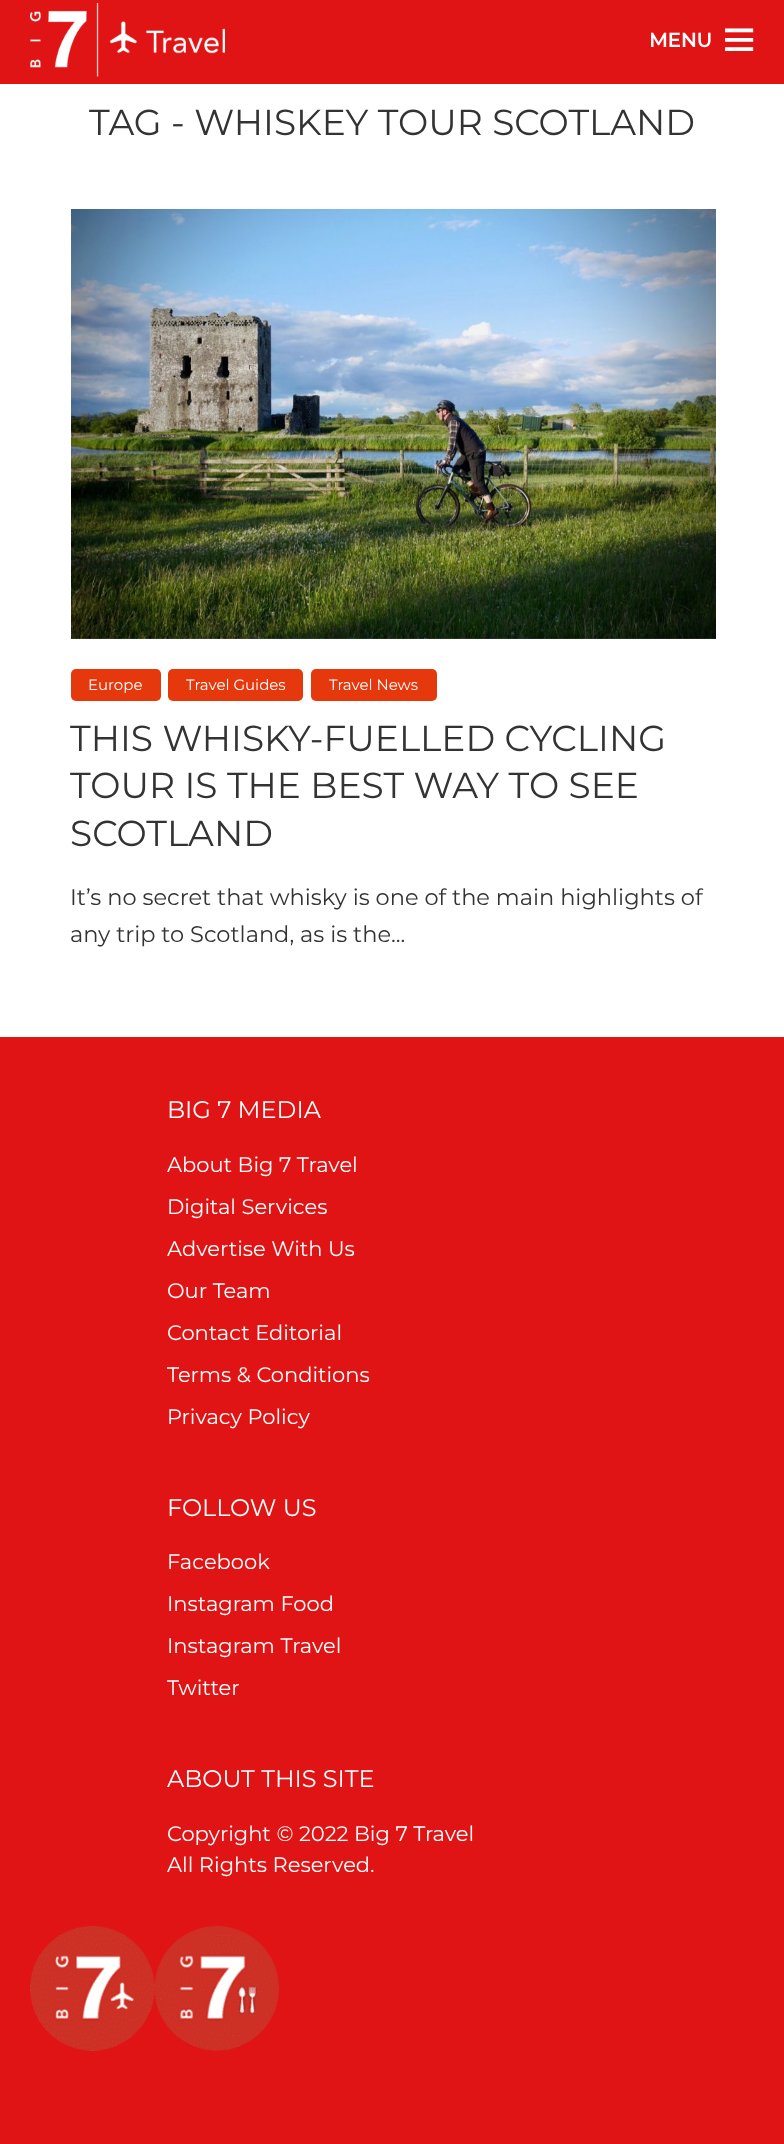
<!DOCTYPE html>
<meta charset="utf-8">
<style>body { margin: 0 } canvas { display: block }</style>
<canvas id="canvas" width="784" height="2144"></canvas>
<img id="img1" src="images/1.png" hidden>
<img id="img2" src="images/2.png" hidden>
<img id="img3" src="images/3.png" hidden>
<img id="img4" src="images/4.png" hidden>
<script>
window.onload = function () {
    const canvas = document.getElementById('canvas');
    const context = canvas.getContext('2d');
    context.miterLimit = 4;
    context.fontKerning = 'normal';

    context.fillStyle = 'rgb(255, 255, 255)';
    context.fillRect(0, 0, 784, 2144);
    context.fillStyle = 'rgb(224, 20, 20)';
    context.fillRect(0, 0, 784, 84);
    context.drawImage(document.getElementById('img1'), 30, 3, 195, 74);
    context.drawImage(document.getElementById('img2'), 71, 209, 645, 430);
    context.fillStyle = 'rgb(229, 56, 13)';
    context.beginPath();
    context.roundRect(71, 669, 90, 32, 5);
    context.fill();
    context.beginPath();
    context.roundRect(168, 669, 135, 32, 5);
    context.fill();
    context.beginPath();
    context.roundRect(311, 669, 126, 32, 5);
    context.fill();
    context.fillStyle = 'rgb(224, 20, 20)';
    context.fillRect(0, 1037, 784, 1107);
    context.drawImage(document.getElementById('img3'), 30, 1926, 125, 125);
    context.drawImage(document.getElementById('img4'), 154, 1926, 125, 125);
    context.font = 'bold 19.5px Montserrat';
    context.fillStyle = 'rgb(255, 255, 255)';
    context.fillText('MENU', 649, 47);
    context.font = '30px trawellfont';
    context.fillText('𐦺', 725, 51);
    context.font = '36px Montserrat';
    context.fillStyle = 'rgb(51, 51, 51)';
    context.fillText('TAG - WHISKEY TOUR SCOTLAND', 89, 135);
    context.font = '15px Montserrat';
    context.fillStyle = 'rgb(255, 255, 255)';
    context.fillText('Europe', 88, 690);
    context.fillText('Travel Guides', 186, 690);
    context.fillText('Travel News', 329, 690);
    context.font = '36px Montserrat';
    context.fillStyle = 'rgb(51, 51, 51)';
    context.fillText('THIS WHISKY-FUELLED CYCLING', 70, 751);
    context.fillText('TOUR IS THE BEST WAY TO SEE', 70, 798);
    context.fillText('SCOTLAND', 70, 846);
    context.font = '22.5px Montserrat';
    context.fillText('It’s no secret that whisky is one of the main highlights of', 70, 905);
    context.fillText('any trip to Scotland, as is the...', 70, 942);
    context.font = '24px Montserrat';
    context.fillStyle = 'rgb(255, 255, 255)';
    context.fillText('BIG 7 MEDIA', 167, 1118);
    context.font = '21px Montserrat';
    context.fillText('About Big 7 Travel', 167, 1172);
    context.fillText('Digital Services', 167, 1214);
    context.fillText('Advertise With Us', 167, 1256);
    context.fillText('Our Team', 167, 1298);
    context.fillText('Contact Editorial', 167, 1340);
    context.fillText('Terms & Conditions', 167, 1382);
    context.fillText('Privacy Policy', 167, 1424);
    context.font = '24px Montserrat';
    context.fillText('FOLLOW US', 167, 1516);
    context.font = '21px Montserrat';
    context.fillText('Facebook', 167, 1569);
    context.fillText('Instagram Food', 167, 1611);
    context.fillText('Instagram Travel', 167, 1653);
    context.fillText('Twitter', 167, 1695);
    context.font = '24px Montserrat';
    context.fillText('ABOUT THIS SITE', 167, 1787);
    context.font = '21px Montserrat';
    context.fillText('Copyright © 2022 Big 7 Travel', 167, 1841);
    context.fillText('All Rights Reserved.', 167, 1872);
};
</script>
